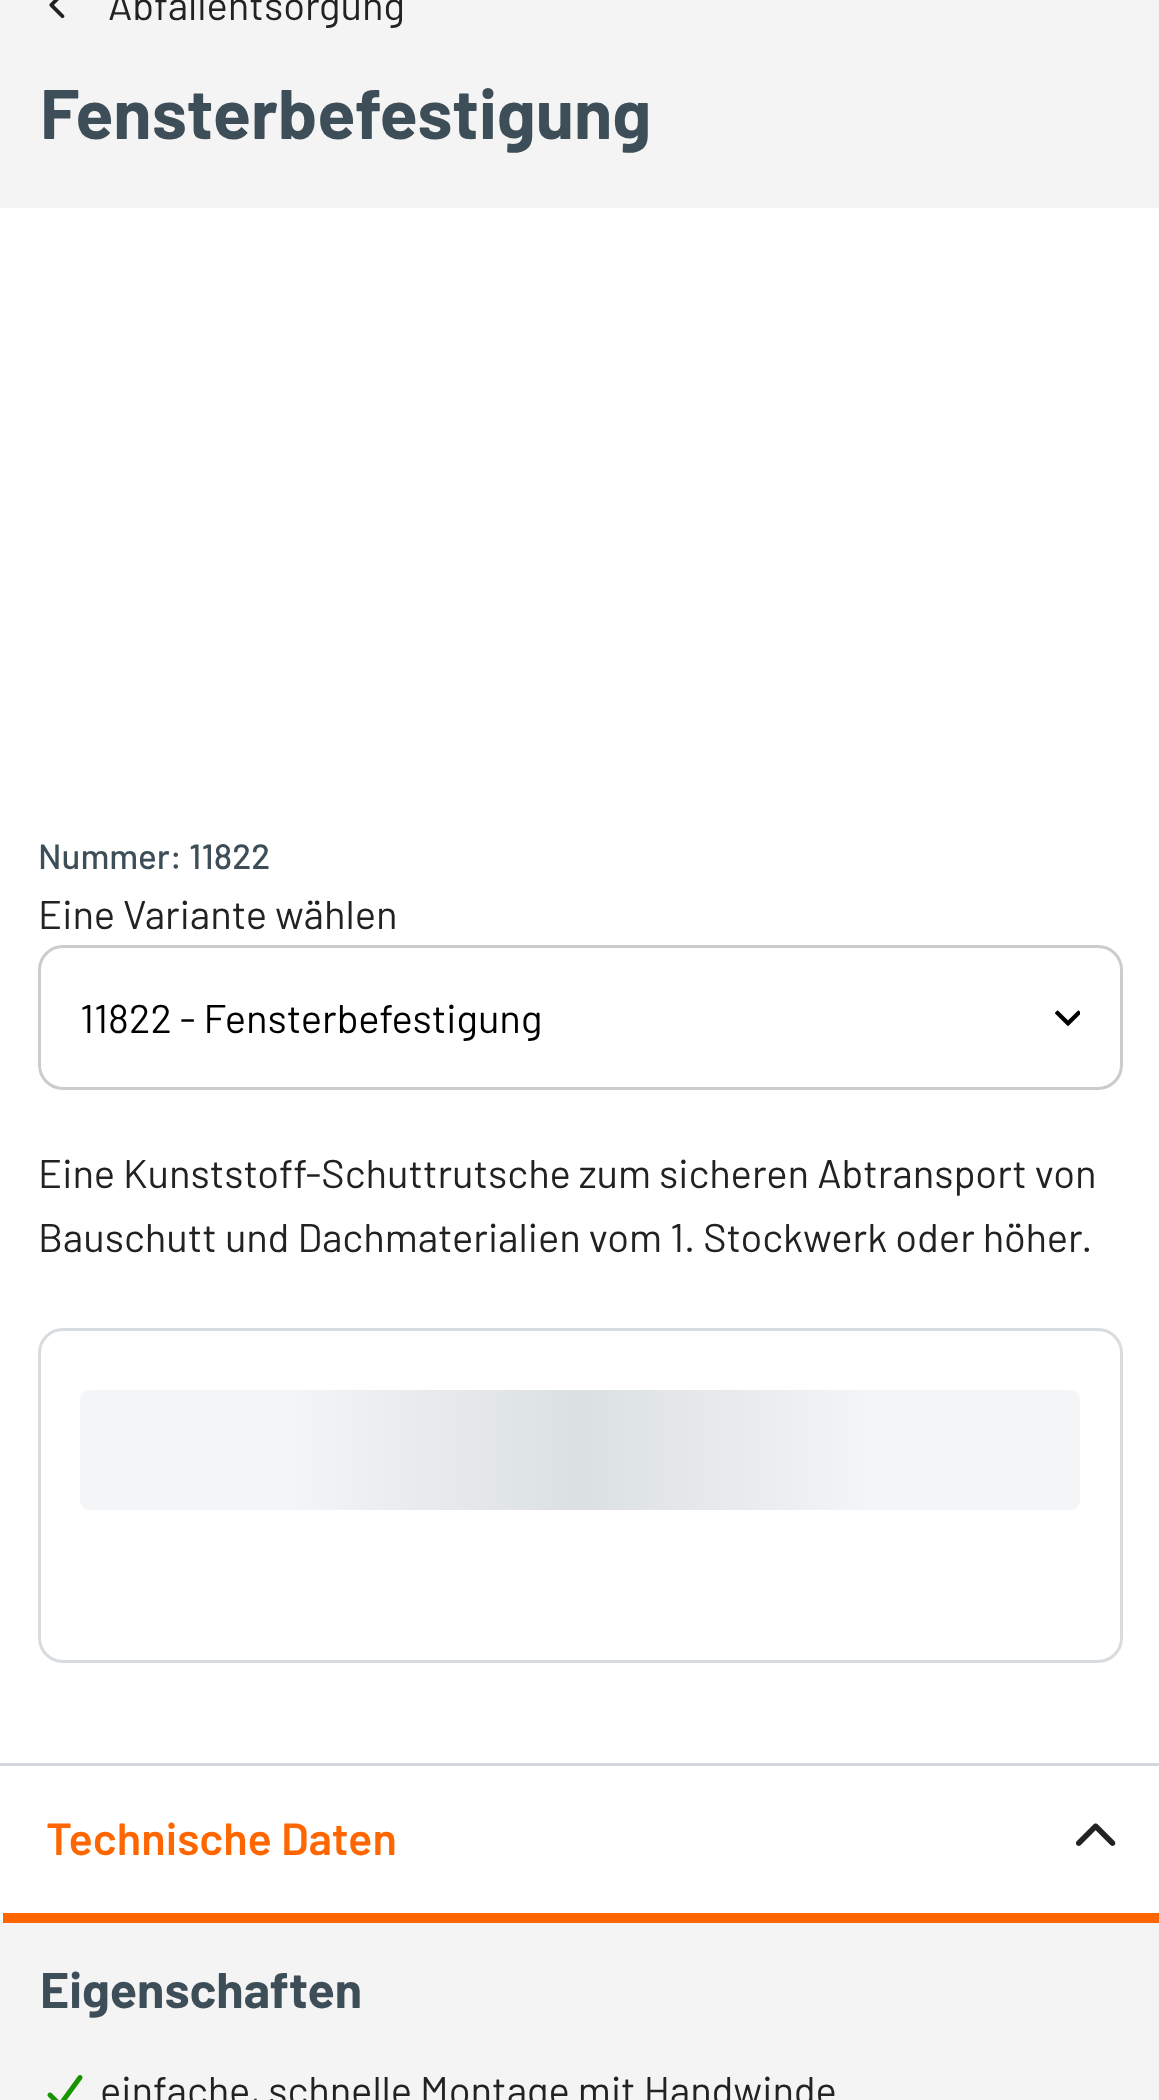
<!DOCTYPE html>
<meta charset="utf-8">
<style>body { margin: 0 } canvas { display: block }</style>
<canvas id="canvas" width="1159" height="2100"></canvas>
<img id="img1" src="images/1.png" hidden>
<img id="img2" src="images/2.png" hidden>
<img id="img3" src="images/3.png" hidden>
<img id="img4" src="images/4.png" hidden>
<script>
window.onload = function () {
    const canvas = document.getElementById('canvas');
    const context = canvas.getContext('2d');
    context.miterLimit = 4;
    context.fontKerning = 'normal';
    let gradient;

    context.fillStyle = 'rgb(255, 255, 255)';
    context.fillRect(0, 0, 1159, 2100);
    context.fillStyle = 'rgb(244, 244, 244)';
    context.fillRect(0, 0, 1159, 208);
    context.drawImage(document.getElementById('img1'), 49, 0, 16, 19);
    context.beginPath();
    context.roundRect(39.5, 946.5, 1082, 142, 23.5);
    context.strokeStyle = 'rgb(204, 204, 204)';
    context.lineWidth = 3;
    context.stroke();
    context.drawImage(document.getElementById('img2'), 1055, 1010, 25, 16);
    context.beginPath();
    context.roundRect(39.5, 1329.5, 1082, 332, 23.5);
    context.strokeStyle = 'rgb(216, 220, 222)';
    context.stroke();
    gradient = context.createLinearGradient(0, 1050, 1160, 1050);
    gradient.addColorStop(0.25, 'rgb(243, 245, 246)');
    gradient.addColorStop(0.5, 'rgb(219, 224, 226)');
    gradient.addColorStop(0.75, 'rgb(243, 245, 246)');
    context.fillStyle = gradient;
    context.beginPath();
    context.roundRect(80, 1390, 1000, 120, 10);
    context.fill();
    context.fillStyle = 'rgb(211, 214, 219)';
    context.fillRect(0, 1763, 1159, 3);
    context.drawImage(document.getElementById('img3'), 1076, 1823, 40, 23);
    context.fillStyle = 'rgb(244, 244, 244)';
    context.fillRect(0, 1920, 1159, 180);
    context.fillStyle = 'rgb(255, 102, 0)';
    context.fillRect(3, 1913, 1156, 10);
    context.drawImage(document.getElementById('img4'), 47, 2075, 36, 25);
    context.font = '40px Barlow';
    context.fillStyle = 'rgb(34, 34, 34)';
    context.fillText('Abfallentsorgung', 108, 20);
    context.font = 'bold 70px Barlow';
    context.fillStyle = 'rgb(62, 78, 88)';
    context.fillText('Fensterbefestigung', 40, 139);
    context.font = '500 35px Barlow';
    context.fillText('Nummer: 11822', 38, 869);
    context.font = '40px Barlow';
    context.fillStyle = 'rgb(34, 34, 34)';
    context.fillText('Eine Variante wählen', 38, 929);
    context.fillStyle = 'rgb(0, 0, 0)';
    context.fillText('11822 - Fensterbefestigung', 80, 1033);
    context.fillStyle = 'rgb(34, 34, 34)';
    context.fillText('Eine Kunststoff-Schuttrutsche zum sicheren Abtransport von', 38, 1188);
    context.fillText('Bauschutt und Dachmaterialien vom 1. Stockwerk oder höher.', 38, 1252);
    context.font = '600 45px Barlow';
    context.fillStyle = 'rgb(255, 102, 0)';
    context.fillText('Technische Daten', 46, 1855);
    context.font = 'bold 50px Barlow';
    context.fillStyle = 'rgb(62, 78, 88)';
    context.fillText('Eigenschaften', 40, 2008);
    context.font = '40px Barlow';
    context.fillStyle = 'rgb(34, 34, 34)';
    context.fillText('einfache, schnelle Montage mit Handwinde', 100, 2105);
};
</script>
